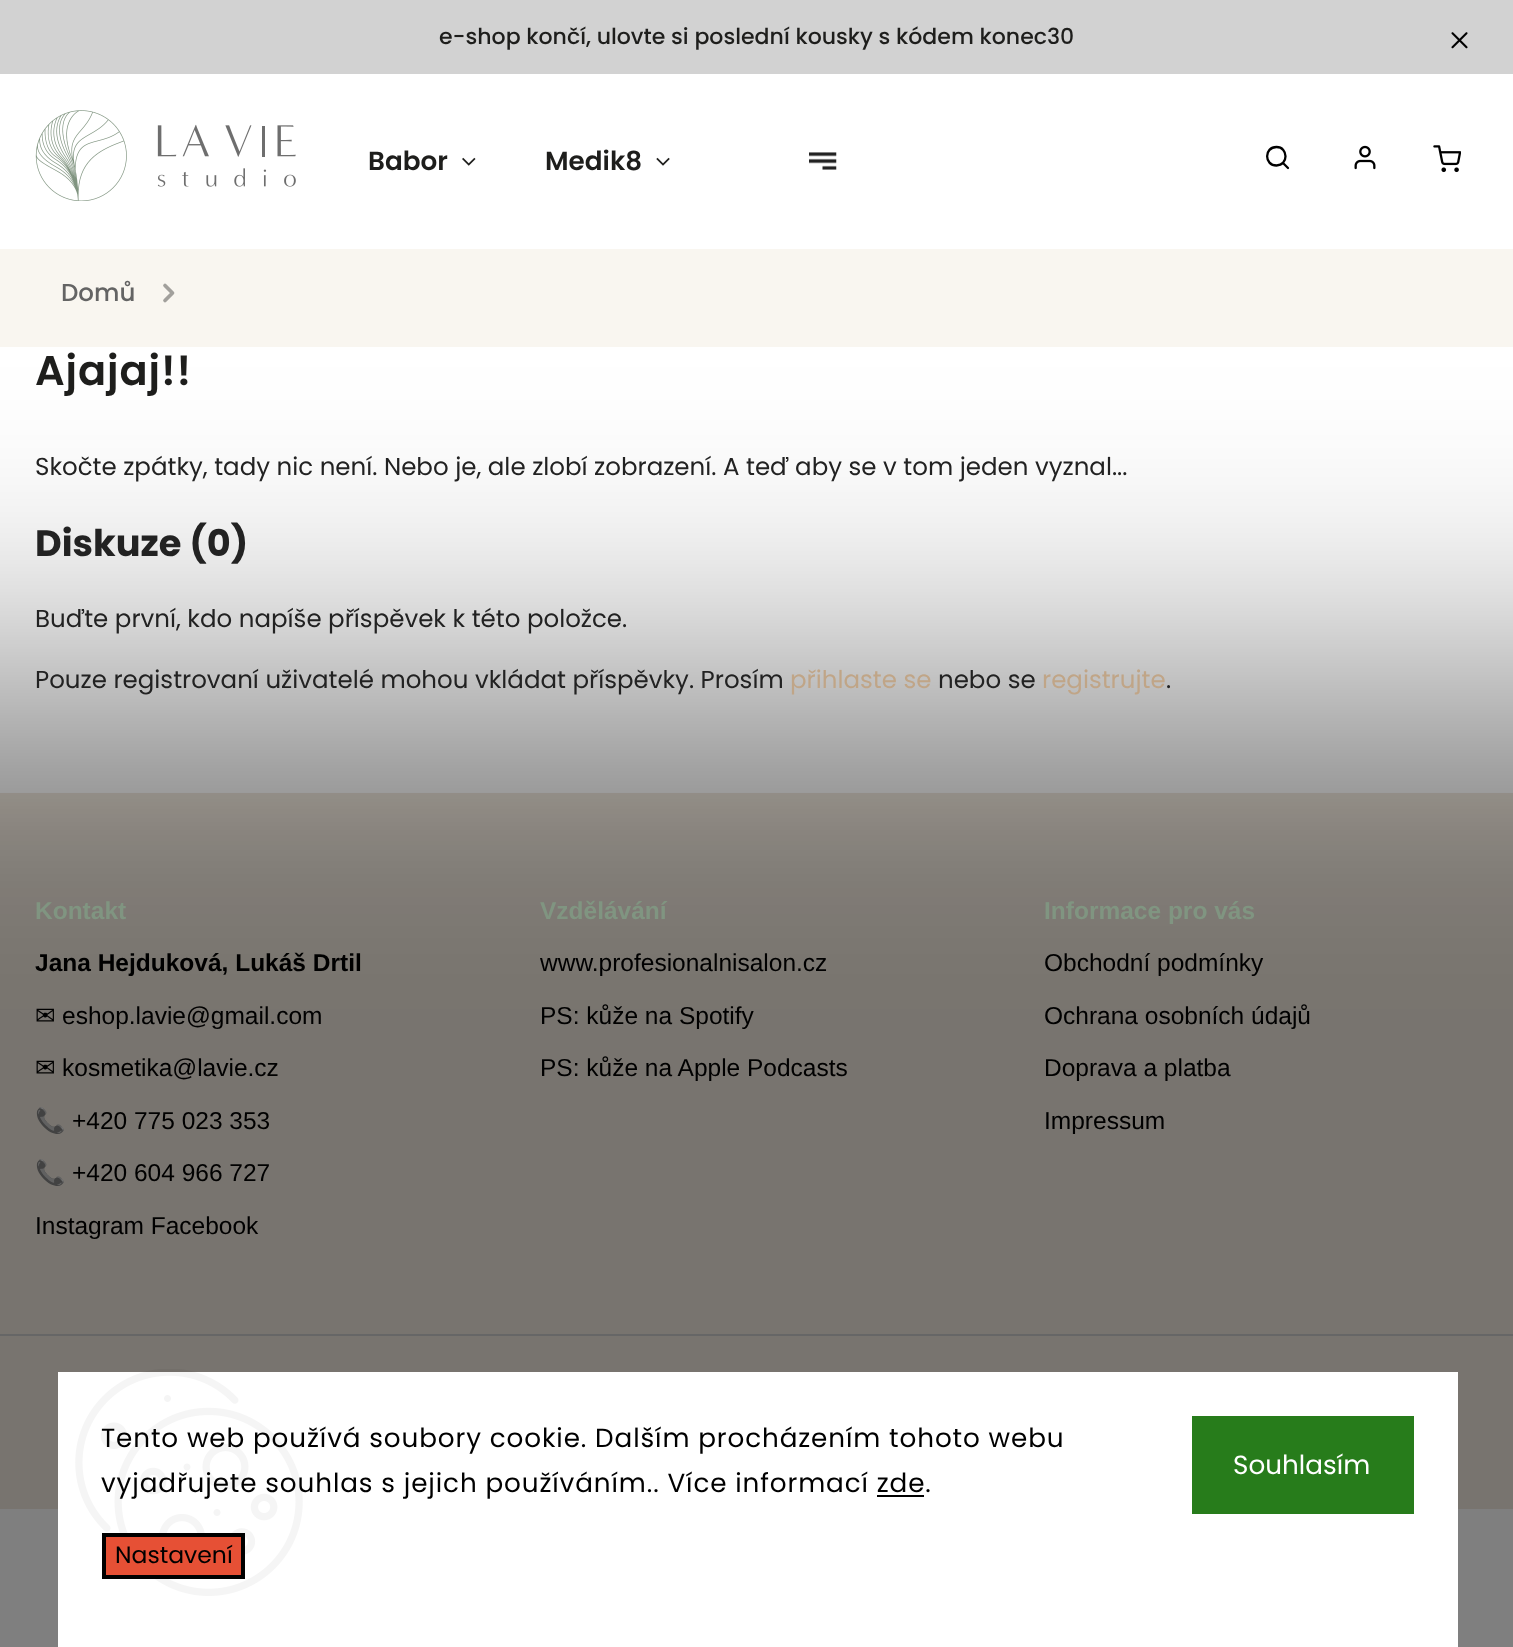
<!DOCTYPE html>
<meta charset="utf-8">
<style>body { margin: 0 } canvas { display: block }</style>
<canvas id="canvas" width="1513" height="1647"></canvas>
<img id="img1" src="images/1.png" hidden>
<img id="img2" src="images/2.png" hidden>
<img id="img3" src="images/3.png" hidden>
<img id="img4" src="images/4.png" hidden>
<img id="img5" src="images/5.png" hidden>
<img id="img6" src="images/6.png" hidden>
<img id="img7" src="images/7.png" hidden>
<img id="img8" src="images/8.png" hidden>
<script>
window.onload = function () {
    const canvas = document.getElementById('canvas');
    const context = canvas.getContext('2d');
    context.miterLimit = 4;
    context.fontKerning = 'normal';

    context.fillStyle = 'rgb(255, 255, 255)';
    context.fillRect(0, 0, 1513, 1647);
    context.fillStyle = 'rgb(210, 210, 210)';
    context.fillRect(0, 0, 1513, 74);
    context.drawImage(document.getElementById('img1'), 1451, 32, 17, 17);
    context.drawImage(document.getElementById('img2'), 35, 110, 261, 91);
    context.beginPath();
    context.moveTo(1276.5, 165.5);
    context.bezierCurveTo(1288.5, 165.5, 1288.5, 147, 1276.5, 147);
    context.bezierCurveTo(1264, 147, 1264, 165.5, 1276.5, 165.5);
    context.closePath();
    context.moveTo(1288, 168);
    context.lineTo(1283, 163);
    context.strokeStyle = 'rgb(0, 0, 0)';
    context.lineWidth = 2.3;
    context.lineCap = 'round';
    context.lineJoin = 'round';
    context.stroke();
    context.drawImage(document.getElementById('img3'), 1354, 145, 22, 25);
    context.drawImage(document.getElementById('img4'), 1433, 145, 28, 28);
    context.drawImage(document.getElementById('img5'), 462, 157, 14, 9);
    context.drawImage(document.getElementById('img6'), 656, 157, 14, 9);
    context.drawImage(document.getElementById('img7'), 809, 152, 28, 18);
    context.fillStyle = 'rgb(249, 246, 240)';
    context.fillRect(0, 249, 1513, 98);
    context.beginPath();
    context.moveTo(165, 300.5);
    context.lineTo(172.5, 293);
    context.lineTo(165, 285.5);
    context.strokeStyle = 'rgb(162, 160, 156)';
    context.lineWidth = 3.7;
    context.stroke();
    context.fillStyle = 'rgb(241, 233, 222)';
    context.fillRect(0, 793, 1513, 716);
    context.fillStyle = 'rgb(204, 204, 204)';
    context.fillRect(0, 1334, 1513, 2);
    context.fillStyle = 'rgba(0, 0, 0, 0.5)';
    context.filter = 'blur(140px)';
    context.beginPath();
    context.rect(-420, 686, 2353, 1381);
    context.fill();
    context.filter = 'none';
    context.fillStyle = 'rgb(255, 255, 255)';
    context.fillRect(58, 1372, 1400, 275);
    context.drawImage(document.getElementById('img8'), 75, 1369, 228, 227);
    context.fillStyle = 'rgb(0, 0, 0)';
    context.fillRect(877, 1495, 47, 2);
    context.fillStyle = 'rgb(230, 80, 53)';
    context.beginPath();
    context.rect(104, 1535, 139, 42);
    context.fill();
    context.strokeStyle = 'rgb(0, 0, 0)';
    context.lineWidth = 4;
    context.lineJoin = 'miter';
    context.stroke();
    context.fillStyle = 'rgb(39, 124, 27)';
    context.fillRect(1192, 1416, 222, 98);
    context.font = '500 22.05px Poppins';
    context.fillStyle = 'rgb(30, 30, 28)';
    context.fillText('e-shop končí, ulovte si poslední kousky s kódem konec30', 439, 44);
    context.font = '600 26.25px Poppins';
    context.fillText('Babor', 368, 170);
    context.fillText('Medik8', 545, 170);
    context.font = '500 24.5px Poppins';
    context.fillStyle = 'rgb(100, 100, 100)';
    context.fillText('Domů', 61, 301);
    context.letterSpacing = '0.88px';
    context.font = '600 41.5px Poppins';
    context.fillStyle = 'rgb(30, 30, 28)';
    context.fillText('Ajajaj!!', 35, 385);
    context.letterSpacing = '0px';
    context.font = '24.5px Poppins';
    context.fillStyle = 'rgb(34, 34, 34)';
    context.fillText('Skočte zpátky, tady nic není. Nebo je, ale zlobí zobrazení. A teď aby se v tom jeden vyznal...', 35, 475);
    context.font = 'bold 36.75px Poppins';
    context.fillText('Diskuze (0)', 35, 556);
    context.font = '24.5px Poppins';
    context.fillText('Buďte první, kdo napíše příspěvek k této položce.', 35, 627);
    context.fillText('Pouze registrovaní uživatelé mohou vkládat příspěvky. Prosím', 35, 688);
    context.fillStyle = 'rgb(192, 165, 135)';
    context.fillText('přihlaste se', 790, 688);
    context.fillStyle = 'rgb(34, 34, 34)';
    context.fillText('nebo se', 938, 688);
    context.fillStyle = 'rgb(192, 165, 135)';
    context.fillText('registrujte', 1042, 688);
    context.fillStyle = 'rgb(34, 34, 34)';
    context.fillText('.', 1166, 688);
    context.font = 'bold 24.5px Liberation Sans';
    context.fillStyle = 'rgb(128, 149, 129)';
    context.fillText('Kontakt', 35, 919);
    context.fillStyle = 'rgb(0, 0, 0)';
    context.fillText('Jana Hejduková, Lukáš Drtil', 35, 971);
    context.font = '24.5px DejaVu Sans';
    context.fillText('✉', 35, 1024);
    context.font = '24.5px Liberation Sans';
    context.fillText('eshop.lavie@gmail.com', 62, 1024);
    context.font = '24.5px DejaVu Sans';
    context.fillText('✉', 35, 1076);
    context.font = '24.5px Liberation Sans';
    context.fillText('kosmetika@lavie.cz', 62, 1076);
    context.font = '24.5px Noto Color Emoji';
    context.fillText('📞', 35, 1129);
    context.font = '24.5px Liberation Sans';
    context.fillText('+420 775 023 353', 72, 1129);
    context.font = '24.5px Noto Color Emoji';
    context.fillText('📞', 35, 1181);
    context.font = '24.5px Liberation Sans';
    context.fillText('+420 604 966 727', 72, 1181);
    context.fillText('Instagram Facebook', 35, 1234);
    context.font = 'bold 24.5px Liberation Sans';
    context.fillStyle = 'rgb(128, 149, 129)';
    context.fillText('Vzdělávání', 540, 919);
    context.font = '24.5px Liberation Sans';
    context.fillStyle = 'rgb(0, 0, 0)';
    context.fillText('www.profesionalnisalon.cz', 540, 971);
    context.fillText('PS: kůže na Spotify', 540, 1024);
    context.fillText('PS: kůže na Apple Podcasts', 540, 1076);
    context.font = 'bold 24.5px Liberation Sans';
    context.fillStyle = 'rgb(128, 149, 129)';
    context.fillText('Informace pro vás', 1044, 919);
    context.font = '24.5px Liberation Sans';
    context.fillStyle = 'rgb(0, 0, 0)';
    context.fillText('Obchodní podmínky', 1044, 971);
    context.fillText('Ochrana osobních údajů', 1044, 1024);
    context.fillText('Doprava a platba', 1044, 1076);
    context.fillText('Impressum', 1044, 1129);
    context.letterSpacing = '0.88px';
    context.font = '26.25px Poppins';
    context.fillText('Tento web používá soubory cookie. Dalším procházením tohoto webu', 101, 1447);
    context.fillText('vyjadřujete souhlas s jejich používáním.. Více informací zde.', 101, 1492);
    context.letterSpacing = '0px';
    context.font = '23.5px Poppins';
    context.fillText('Nastavení', 115, 1563);
    context.font = '26.25px Poppins';
    context.fillStyle = 'rgb(255, 255, 255)';
    context.fillText('Souhlasím', 1233, 1474);
};
</script>
